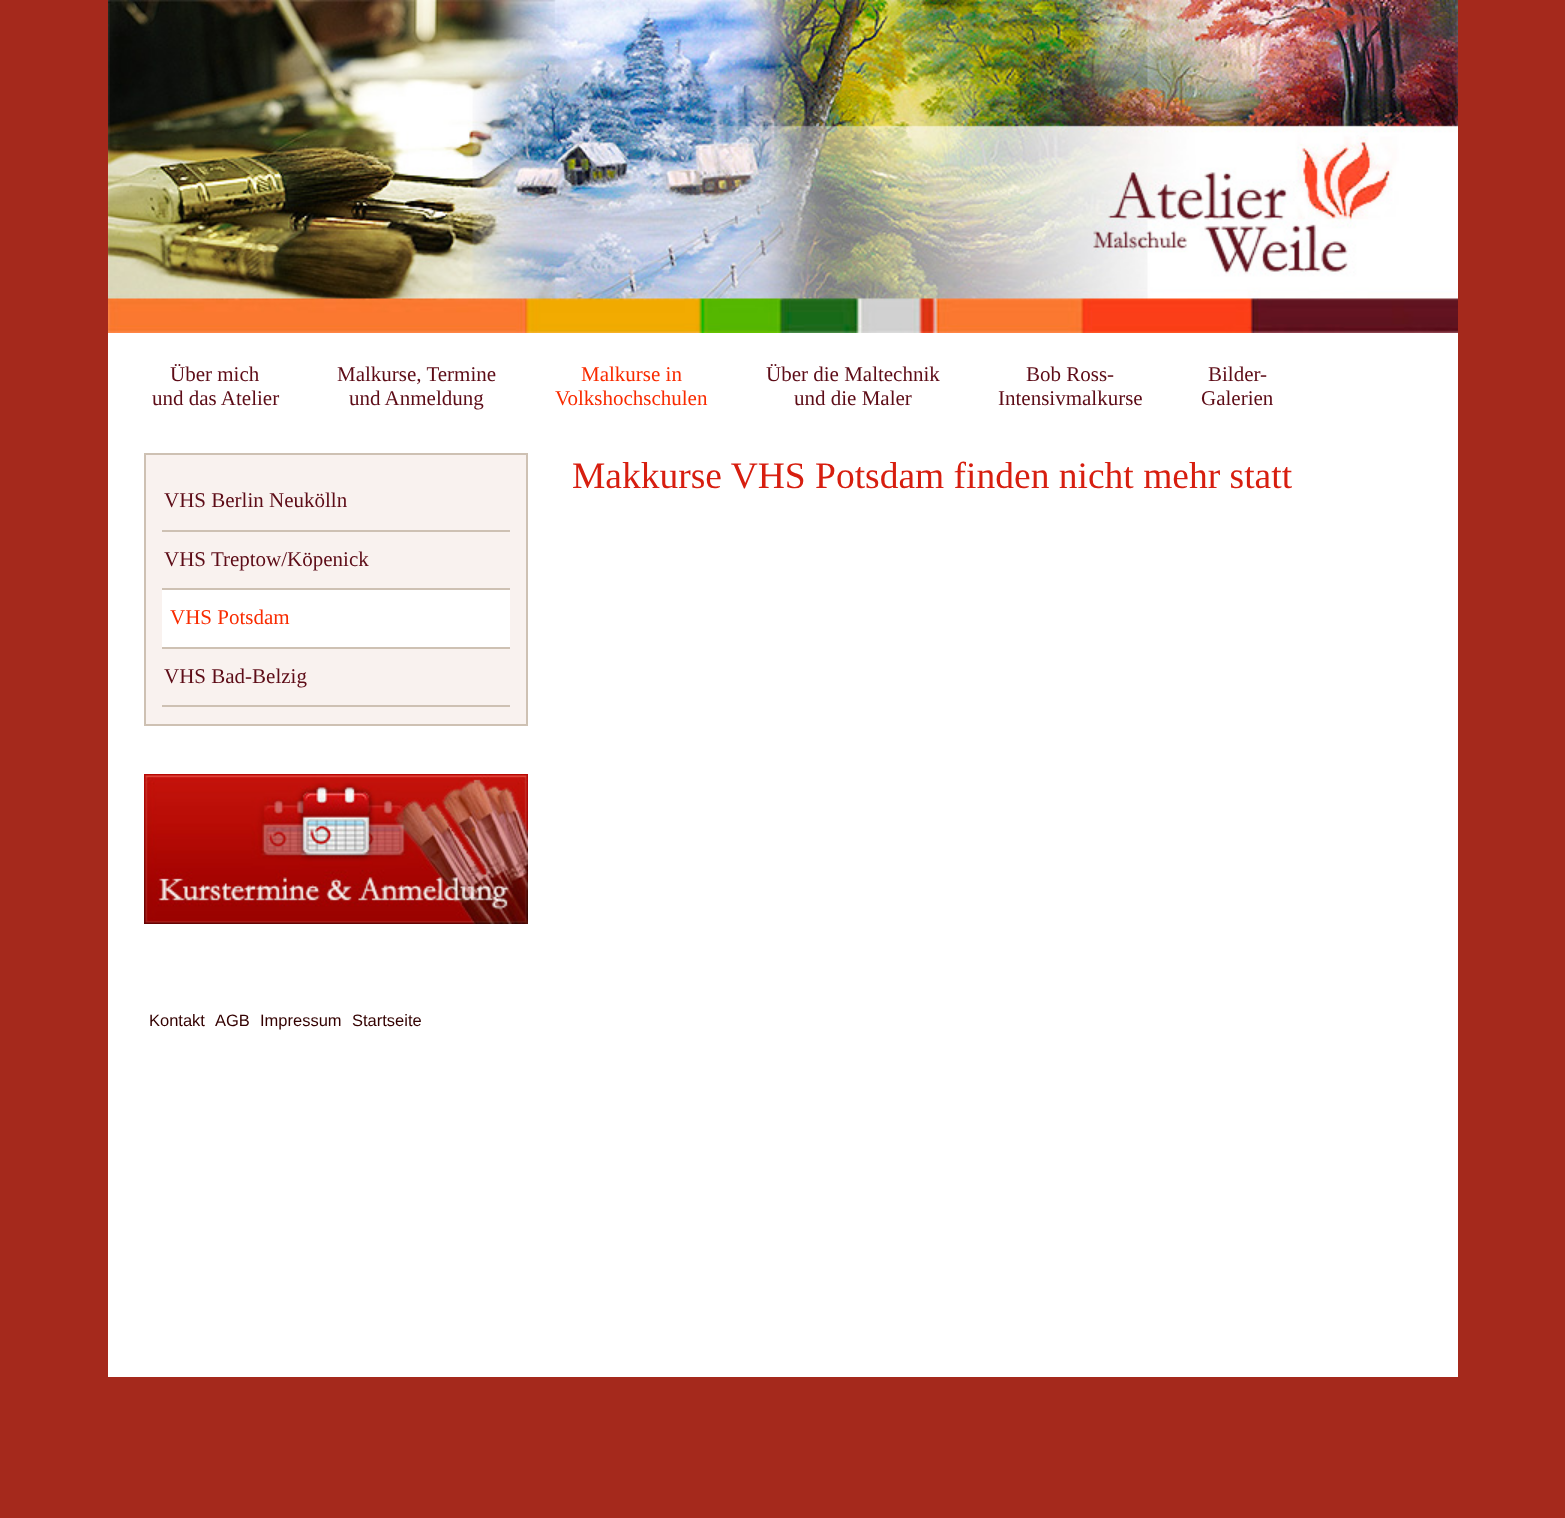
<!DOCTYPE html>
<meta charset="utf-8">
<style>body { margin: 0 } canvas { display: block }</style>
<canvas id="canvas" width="1565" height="1518"></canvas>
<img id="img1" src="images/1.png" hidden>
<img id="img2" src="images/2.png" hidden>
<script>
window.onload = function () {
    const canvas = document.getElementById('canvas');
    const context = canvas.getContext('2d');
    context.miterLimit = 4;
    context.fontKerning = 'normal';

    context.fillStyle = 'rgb(165, 41, 28)';
    context.fillRect(0, 0, 1565, 1518);
    context.fillStyle = 'rgb(255, 255, 255)';
    context.fillRect(108, 333, 1350, 1044);
    context.drawImage(document.getElementById('img1'), 108, 0, 1350, 333);
    context.fillStyle = 'rgb(249, 242, 239)';
    context.beginPath();
    context.rect(145, 454, 382, 271);
    context.fill();
    context.strokeStyle = 'rgb(206, 193, 179)';
    context.lineWidth = 2;
    context.stroke();
    context.fillStyle = 'rgb(206, 193, 179)';
    context.fillRect(162, 530, 348, 2);
    context.fillRect(162, 588, 348, 2);
    context.fillStyle = 'rgb(255, 255, 255)';
    context.fillRect(162, 590, 348, 57);
    context.fillStyle = 'rgb(206, 193, 179)';
    context.fillRect(162, 647, 348, 2);
    context.fillRect(162, 705, 348, 2);
    context.drawImage(document.getElementById('img2'), 144, 774, 384, 150);
    context.font = '21px Liberation Serif';
    context.fillStyle = 'rgb(93, 12, 23)';
    context.fillText('Über mich', 170, 381);
    context.fillText('und das Atelier', 152, 405);
    context.fillText('Malkurse, Termine', 337, 381);
    context.fillText('und Anmeldung', 349, 405);
    context.fillStyle = 'rgb(249, 43, 0)';
    context.fillText('Malkurse in', 581, 381);
    context.fillText('Volkshochschulen', 555, 405);
    context.fillStyle = 'rgb(93, 12, 23)';
    context.fillText('Über die Maltechnik', 766, 381);
    context.fillText('und die Maler', 794, 405);
    context.fillText('Bob Ross-', 1026, 381);
    context.fillText('Intensivmalkurse', 998, 405);
    context.fillText('Bilder-', 1208, 381);
    context.fillText('Galerien', 1201, 405);
    context.font = '37.5px Liberation Serif';
    context.fillStyle = 'rgb(215, 30, 15)';
    context.fillText('Makkurse VHS Potsdam finden nicht mehr statt', 572, 488);
    context.font = '21px Liberation Serif';
    context.fillStyle = 'rgb(93, 12, 23)';
    context.fillText('VHS Berlin Neukölln', 164, 507);
    context.fillText('VHS Treptow/Köpenick', 164, 566);
    context.fillStyle = 'rgb(249, 43, 0)';
    context.fillText('VHS Potsdam', 170, 624);
    context.fillStyle = 'rgb(93, 12, 23)';
    context.fillText('VHS Bad-Belzig', 164, 683);
    context.font = '16.5px Liberation Sans';
    context.fillStyle = 'rgb(51, 0, 0)';
    context.fillText('Kontakt', 149, 1026);
    context.fillText('AGB', 215, 1026);
    context.fillText('Impressum', 260, 1026);
    context.fillText('Startseite', 352, 1026);
};
</script>
